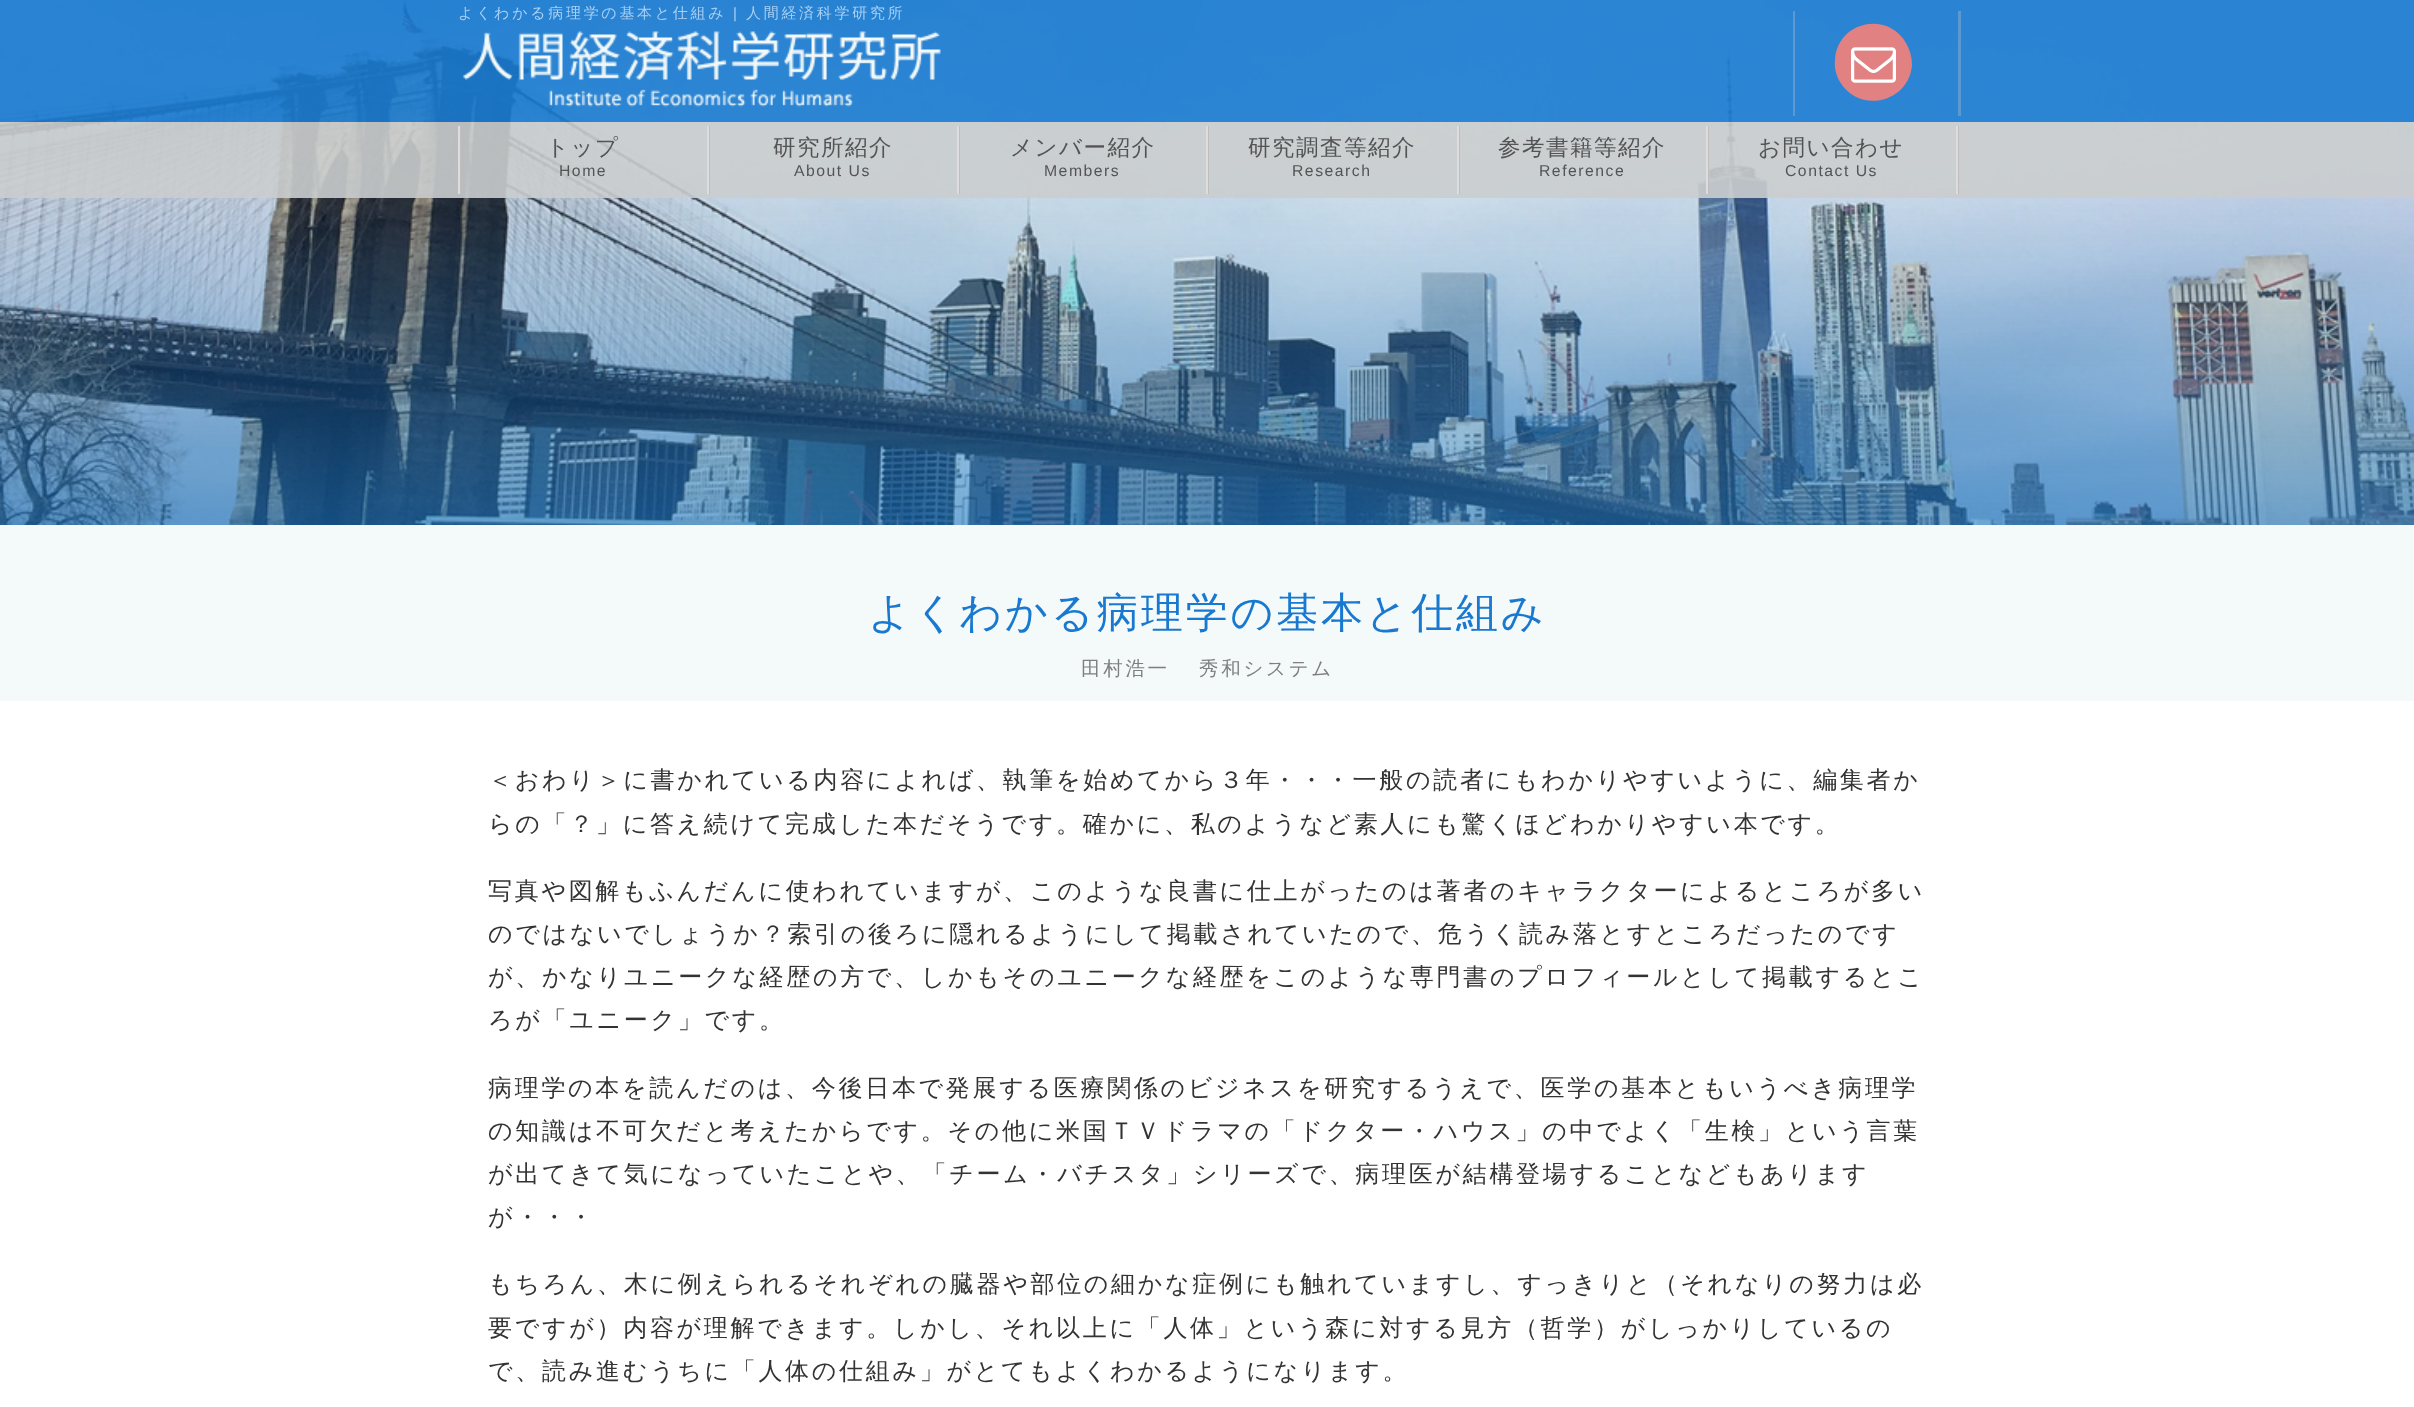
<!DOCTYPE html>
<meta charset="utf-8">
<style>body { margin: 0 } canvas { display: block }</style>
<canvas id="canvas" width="2414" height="1407"></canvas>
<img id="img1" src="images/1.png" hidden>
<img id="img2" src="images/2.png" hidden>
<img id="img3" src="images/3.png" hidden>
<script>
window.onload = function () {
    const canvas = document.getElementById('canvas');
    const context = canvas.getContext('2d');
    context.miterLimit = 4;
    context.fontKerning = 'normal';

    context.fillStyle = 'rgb(255, 255, 255)';
    context.fillRect(0, 0, 2414, 1407);
    context.drawImage(document.getElementById('img1'), 0, 0, 2414, 525);
    context.fillStyle = 'rgba(26, 123, 208, 0.9)';
    context.fillRect(0, 0, 2414, 122);
    context.drawImage(document.getElementById('img2'), 462, 31, 479, 76);
    context.fillStyle = 'rgb(91, 153, 208)';
    context.beginPath();
    context.moveTo(1796, 116);
    context.lineTo(1961, 116);
    context.lineTo(1961, 11);
    context.lineTo(1958, 11);
    context.lineTo(1958, 116);
    context.closePath();
    context.fill();
    context.fillRect(1793, 11, 2, 105);
    context.fillStyle = 'rgb(225, 129, 130)';
    context.beginPath();
    context.moveTo(1906, 43);
    context.bezierCurveTo(1910, 50, 1912, 57, 1912, 65);
    context.bezierCurveTo(1909, 103, 1859, 114, 1840, 82);
    context.bezierCurveTo(1836, 75, 1834, 67, 1835, 60);
    context.bezierCurveTo(1837, 22, 1887, 10, 1906, 43);
    context.closePath();
    context.fill();
    context.drawImage(document.getElementById('img3'), 1851, 47, 45, 36);
    context.fillStyle = 'rgba(202, 205, 206, 0.9)';
    context.fillRect(0, 122, 2414, 76);
    context.fillStyle = 'rgb(190, 190, 190)';
    context.fillRect(460, 126, 1, 68);
    context.fillStyle = 'rgb(221, 221, 221)';
    context.fillRect(458, 126, 2, 68);
    context.fillStyle = 'rgb(190, 190, 190)';
    context.beginPath();
    context.moveTo(461, 194);
    context.lineTo(710, 194);
    context.lineTo(710, 126);
    context.lineTo(708, 126);
    context.lineTo(708, 194);
    context.closePath();
    context.fill();
    context.fillStyle = 'rgb(221, 221, 221)';
    context.fillRect(707, 126, 2, 68);
    context.fillStyle = 'rgb(190, 190, 190)';
    context.beginPath();
    context.moveTo(710, 194);
    context.lineTo(960, 194);
    context.lineTo(960, 126);
    context.lineTo(958, 126);
    context.lineTo(958, 194);
    context.closePath();
    context.fill();
    context.fillStyle = 'rgb(221, 221, 221)';
    context.fillRect(957, 126, 2, 68);
    context.fillStyle = 'rgb(190, 190, 190)';
    context.beginPath();
    context.moveTo(960, 194);
    context.lineTo(1209, 194);
    context.lineTo(1209, 126);
    context.lineTo(1208, 126);
    context.lineTo(1208, 194);
    context.closePath();
    context.fill();
    context.fillStyle = 'rgb(221, 221, 221)';
    context.fillRect(1206, 126, 2, 68);
    context.fillStyle = 'rgb(190, 190, 190)';
    context.beginPath();
    context.moveTo(1209, 194);
    context.lineTo(1460, 194);
    context.lineTo(1460, 126);
    context.lineTo(1458, 126);
    context.lineTo(1458, 194);
    context.closePath();
    context.fill();
    context.fillStyle = 'rgb(221, 221, 221)';
    context.fillRect(1457, 126, 2, 68);
    context.fillStyle = 'rgb(190, 190, 190)';
    context.beginPath();
    context.moveTo(1460, 194);
    context.lineTo(1709, 194);
    context.lineTo(1709, 126);
    context.lineTo(1707, 126);
    context.lineTo(1707, 194);
    context.closePath();
    context.fill();
    context.fillStyle = 'rgb(221, 221, 221)';
    context.fillRect(1706, 126, 2, 68);
    context.fillStyle = 'rgb(190, 190, 190)';
    context.beginPath();
    context.moveTo(1709, 194);
    context.lineTo(1959, 194);
    context.lineTo(1959, 126);
    context.lineTo(1958, 126);
    context.lineTo(1958, 194);
    context.closePath();
    context.fill();
    context.fillStyle = 'rgb(221, 221, 221)';
    context.fillRect(1956, 126, 2, 68);
    context.fillStyle = 'rgb(244, 249, 249)';
    context.fillRect(0, 525, 2414, 176);
    context.letterSpacing = '2.7px';
    context.font = '500 15px WenQuanYi Zen Hei';
    context.fillStyle = 'rgb(168, 208, 244)';
    context.fillText('よくわかる病理学の基本と仕組み', 458, 18);
    context.font = '15px Liberation Sans';
    context.fillText('|', 733, 18);
    context.font = '500 15px WenQuanYi Zen Hei';
    context.fillText('人間経済科学研究所', 746, 18);
    context.letterSpacing = '1.5px';
    context.font = '500 22.5px WenQuanYi Zen Hei';
    context.fillStyle = 'rgb(84, 84, 84)';
    context.fillText('トップ', 546, 155);
    context.font = '15.75px Liberation Sans';
    context.fillText('Home', 559, 176);
    context.font = '500 22.5px WenQuanYi Zen Hei';
    context.fillText('研究所紹介', 773, 155);
    context.font = '15.75px Liberation Sans';
    context.fillText('About Us', 794, 176);
    context.font = '500 22.5px WenQuanYi Zen Hei';
    context.fillText('メンバー紹介', 1010, 155);
    context.font = '15.75px Liberation Sans';
    context.fillText('Members', 1044, 176);
    context.font = '500 22.5px WenQuanYi Zen Hei';
    context.fillText('研究調査等紹介', 1248, 155);
    context.font = '15.75px Liberation Sans';
    context.fillText('Research', 1292, 176);
    context.font = '500 22.5px WenQuanYi Zen Hei';
    context.fillText('参考書籍等紹介', 1498, 155);
    context.font = '15.75px Liberation Sans';
    context.fillText('Reference', 1539, 176);
    context.font = '500 22.5px WenQuanYi Zen Hei';
    context.fillText('お問い合わせ', 1758, 155);
    context.font = '15.75px Liberation Sans';
    context.fillText('Contact Us', 1785, 176);
    context.letterSpacing = '2.7px';
    context.font = '500 42px WenQuanYi Zen Hei';
    context.fillStyle = 'rgb(25, 121, 208)';
    context.fillText('よくわかる病理学の基本と仕組み', 868, 627);
    context.font = '500 19.5px WenQuanYi Zen Hei';
    context.fillStyle = 'rgb(127, 127, 127)';
    context.fillText('田村浩一', 1081, 675);
    context.fillText('秀和システム', 1199, 675);
    context.font = '500 24px WenQuanYi Zen Hei';
    context.fillStyle = 'rgb(51, 51, 51)';
    context.fillText('＜おわり＞に書かれている内容によれば、執筆を始めてから３年・・・一般の読者にもわかりやすいように、編集者か', 488, 788);
    context.fillText('らの「？」に答え続けて完成した本だそうです。確かに、私のようなど素人にも驚くほどわかりやすい本です。', 488, 832);
    context.fillText('写真や図解もふんだんに使われていますが、このような良書に仕上がったのは著者のキャラクターによるところが多い', 488, 899);
    context.fillText('のではないでしょうか？索引の後ろに隠れるようにして掲載されていたので、危うく読み落とすところだったのです', 488, 942);
    context.fillText('が、かなりユニークな経歴の方で、しかもそのユニークな経歴をこのような専門書のプロフィールとして掲載するとこ', 488, 985);
    context.fillText('ろが「ユニーク」です。', 488, 1028);
    context.fillText('病理学の本を読んだのは、今後日本で発展する医療関係のビジネスを研究するうえで、医学の基本ともいうべき病理学', 488, 1096);
    context.fillText('の知識は不可欠だと考えたからです。その他に米国ＴＶドラマの「ドクター・ハウス」の中でよく「生検」という言葉', 488, 1139);
    context.fillText('が出てきて気になっていたことや、「チーム・バチスタ」シリーズで、病理医が結構登場することなどもあります', 488, 1182);
    context.fillText('が・・・', 488, 1225);
    context.fillText('もちろん、木に例えられるそれぞれの臓器や部位の細かな症例にも触れていますし、すっきりと（それなりの努力は必', 488, 1292);
    context.fillText('要ですが）内容が理解できます。しかし、それ以上に「人体」という森に対する見方（哲学）がしっかりしているの', 488, 1336);
    context.fillText('で、読み進むうちに「人体の仕組み」がとてもよくわかるようになります。', 488, 1379);
};
</script>
